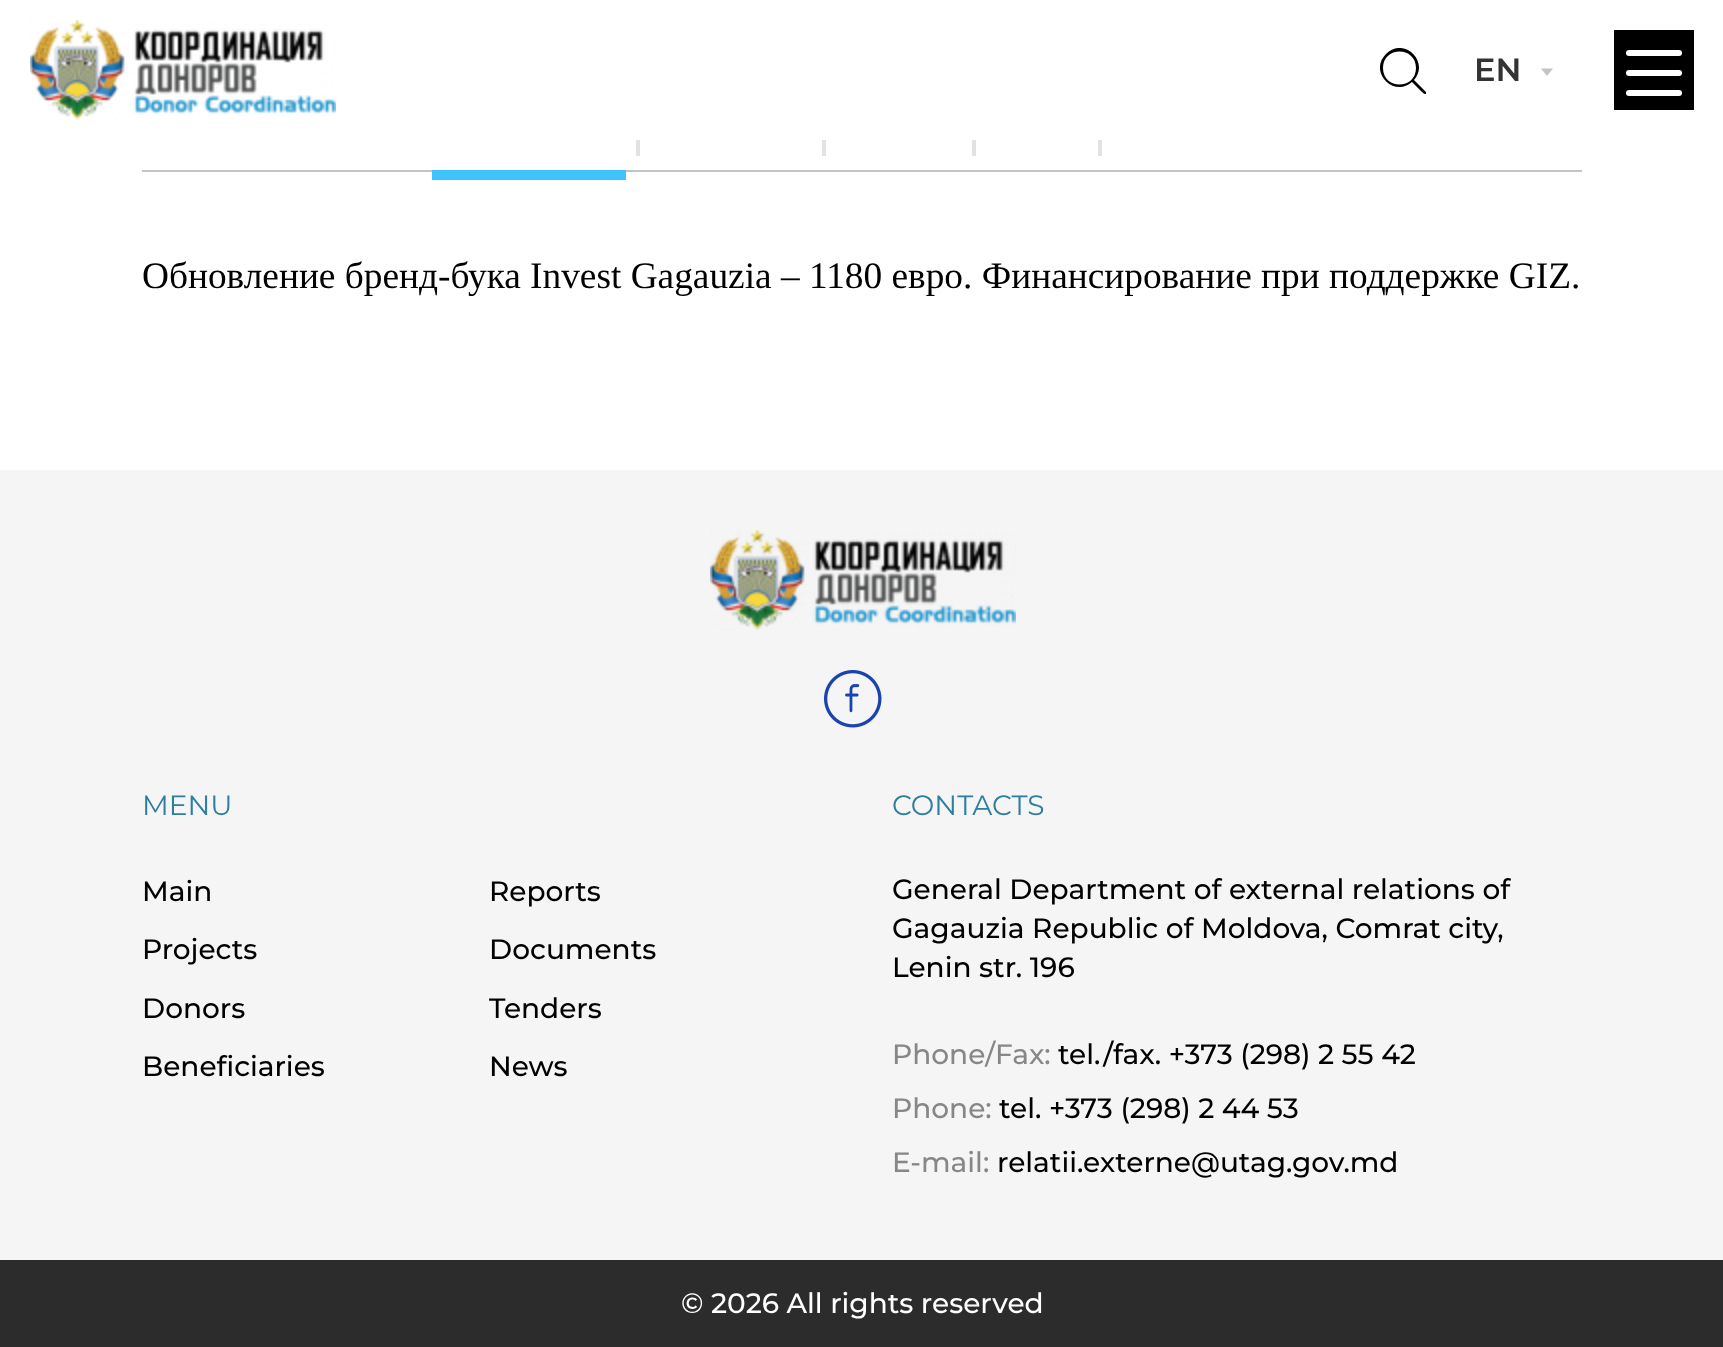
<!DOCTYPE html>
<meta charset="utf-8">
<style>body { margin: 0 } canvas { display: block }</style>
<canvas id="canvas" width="1723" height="1347"></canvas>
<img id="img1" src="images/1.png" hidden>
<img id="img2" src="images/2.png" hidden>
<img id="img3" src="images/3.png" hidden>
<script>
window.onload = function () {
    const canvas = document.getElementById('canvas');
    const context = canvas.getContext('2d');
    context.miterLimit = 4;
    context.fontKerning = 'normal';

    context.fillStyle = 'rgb(255, 255, 255)';
    context.fillRect(0, 0, 1723, 1347);
    context.drawImage(document.getElementById('img1'), 30, 20, 306, 100);
    context.save();
    context.beginPath();
    context.rect(1380, 48, 46, 46);
    context.clip();
    context.fillStyle = 'rgb(0, 0, 0)';
    context.beginPath();
    context.moveTo(1426, 92);
    context.lineTo(1414, 80);
    context.bezierCurveTo(1430, 62, 1404, 36, 1386, 54);
    context.bezierCurveTo(1368, 72, 1394, 98, 1412, 82);
    context.lineTo(1422, 92);
    context.bezierCurveTo(1426, 96, 1427, 93, 1426, 92);
    context.closePath();
    context.moveTo(1383, 68);
    context.bezierCurveTo(1383, 46, 1416, 46, 1416, 68);
    context.bezierCurveTo(1416, 90, 1383, 90, 1383, 68);
    context.closePath();
    context.fill();
    context.restore();
    context.fillStyle = 'rgb(196, 196, 196)';
    context.beginPath();
    context.moveTo(1547, 76);
    context.lineTo(1541, 68.5);
    context.lineTo(1553, 68.5);
    context.closePath();
    context.fill();
    context.fillStyle = 'rgb(0, 0, 0)';
    context.fillRect(1614, 30, 80, 80);
    context.fillStyle = 'rgb(255, 255, 255)';
    context.beginPath();
    context.roundRect(1626, 50, 56, 6, 3);
    context.fill();
    context.beginPath();
    context.roundRect(1626, 70, 56, 6, 3);
    context.fill();
    context.beginPath();
    context.roundRect(1626, 90, 56, 6, 3);
    context.fill();
    context.fillStyle = 'rgb(196, 196, 196)';
    context.fillRect(142, 170, 1440, 2);
    context.fillStyle = 'rgb(226, 226, 226)';
    context.fillRect(636, 140, 4, 16);
    context.fillStyle = 'rgb(63, 195, 252)';
    context.fillRect(432, 170, 194, 10);
    context.fillStyle = 'rgb(226, 226, 226)';
    context.fillRect(822, 140, 4, 16);
    context.fillRect(972, 140, 4, 16);
    context.fillRect(1098, 140, 4, 16);
    context.fillStyle = 'rgb(245, 245, 245)';
    context.fillRect(0, 470, 1723, 790);
    context.drawImage(document.getElementById('img2'), 710, 530, 306, 100);
    context.drawImage(document.getElementById('img3'), 824, 670, 58, 58);
    context.fillStyle = 'rgb(44, 44, 44)';
    context.fillRect(0, 1260, 1723, 87);
    context.font = '600 32px Montserrat';
    context.fillStyle = 'rgb(51, 51, 51)';
    context.fillText('EN', 1474, 81);
    context.font = '37.35px Liberation Serif';
    context.fillStyle = 'rgb(0, 0, 0)';
    context.fillText('Обновление бренд-бука Invest Gagauzia – 1180 евро. Финансирование при поддержке GIZ.', 142, 288);
    context.font = '28px Montserrat';
    context.fillStyle = 'rgb(46, 126, 159)';
    context.fillText('MENU', 142, 815);
    context.font = '500 28px Montserrat';
    context.fillStyle = 'rgb(0, 0, 0)';
    context.fillText('Main', 142, 901);
    context.fillText('Reports', 489, 901);
    context.fillText('Projects', 142, 959);
    context.fillText('Documents', 489, 959);
    context.fillText('Donors', 142, 1018);
    context.fillText('Tenders', 489, 1018);
    context.fillText('Beneficiaries', 142, 1076);
    context.fillText('News', 489, 1076);
    context.font = '28px Montserrat';
    context.fillStyle = 'rgb(46, 126, 159)';
    context.fillText('CONTACTS', 892, 815);
    context.font = '500 28px Montserrat';
    context.fillStyle = 'rgb(0, 0, 0)';
    context.fillText('General Department of external relations of', 892, 899);
    context.fillText('Gagauzia Republic of Moldova, Comrat city,', 892, 938);
    context.fillText('Lenin str. 196', 892, 977);
    context.fillStyle = 'rgb(135, 135, 135)';
    context.fillText('Phone/Fax:', 892, 1064);
    context.fillStyle = 'rgb(0, 0, 0)';
    context.fillText('tel./fax. +373 (298) 2 55 42', 1058, 1064);
    context.fillStyle = 'rgb(135, 135, 135)';
    context.fillText('Phone:', 892, 1118);
    context.fillStyle = 'rgb(0, 0, 0)';
    context.fillText('tel. +373 (298) 2 44 53', 999, 1118);
    context.fillStyle = 'rgb(135, 135, 135)';
    context.fillText('E-mail:', 892, 1172);
    context.fillStyle = 'rgb(0, 0, 0)';
    context.fillText('relatii.externe@utag.gov.md', 997, 1172);
    context.fillStyle = 'rgb(255, 255, 255)';
    context.fillText('© 2026 All rights reserved', 681, 1313);
};
</script>
